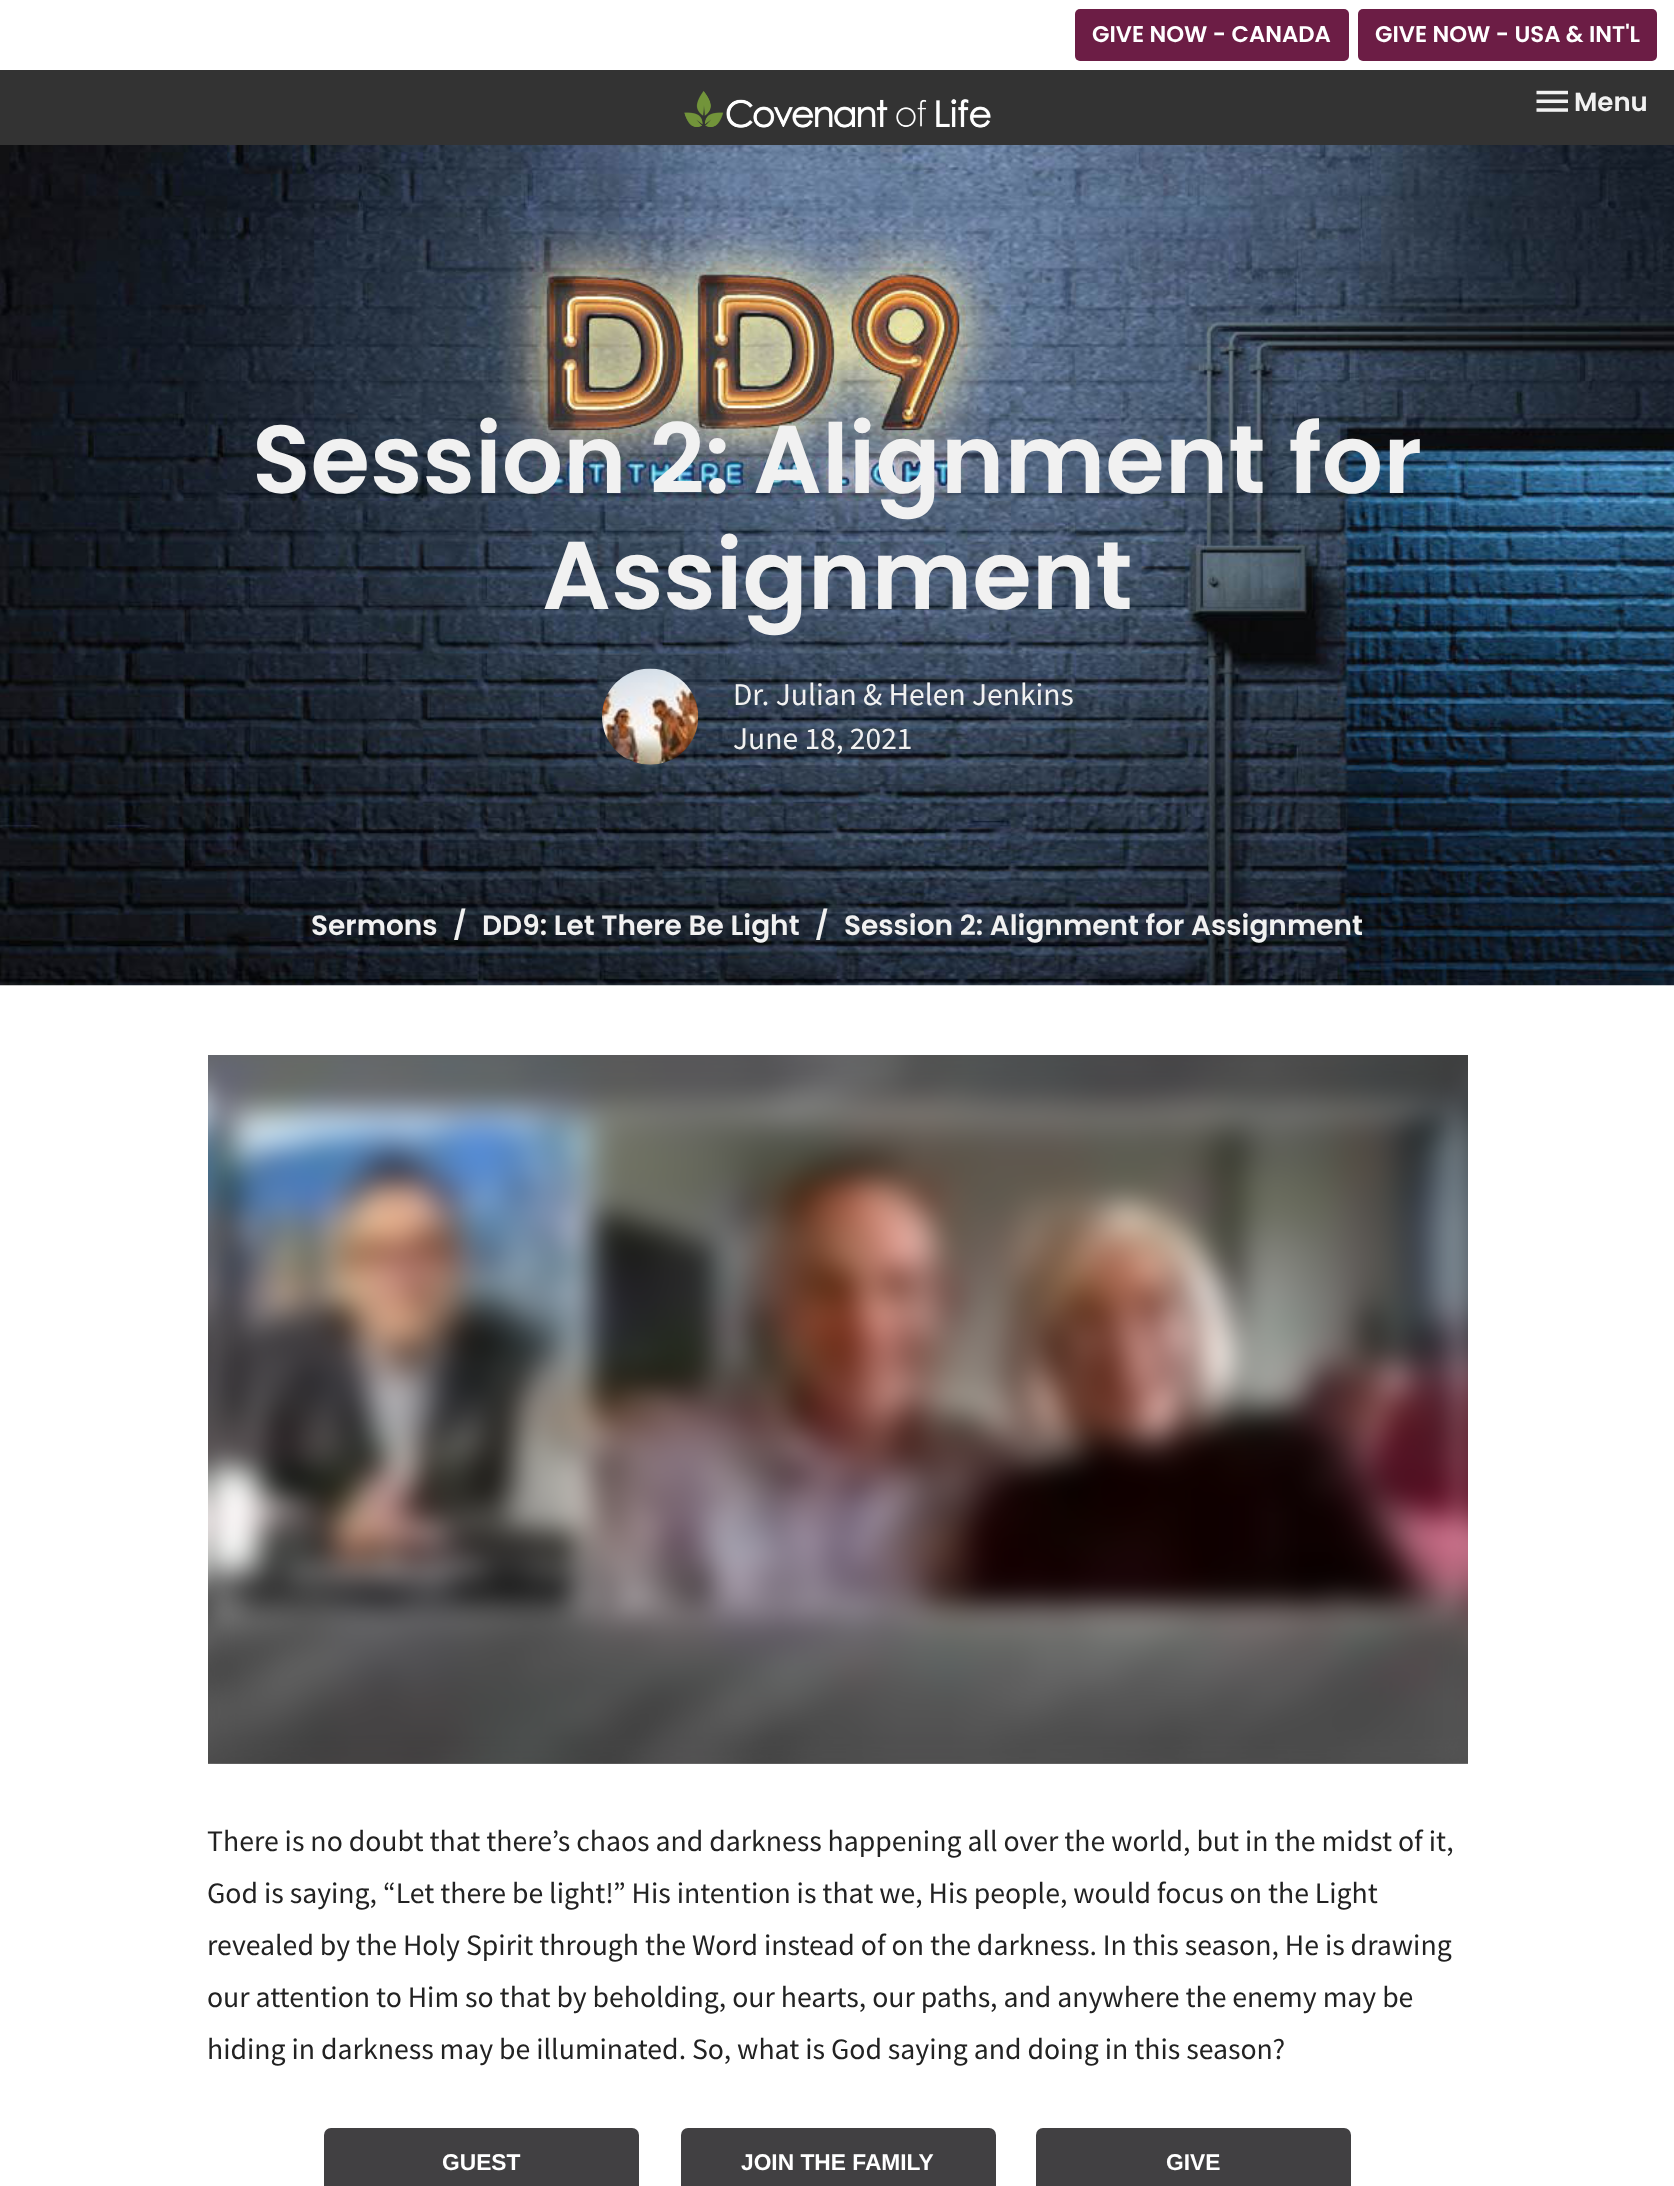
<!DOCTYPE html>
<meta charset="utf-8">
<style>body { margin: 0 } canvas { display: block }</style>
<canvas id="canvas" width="1674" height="2186"></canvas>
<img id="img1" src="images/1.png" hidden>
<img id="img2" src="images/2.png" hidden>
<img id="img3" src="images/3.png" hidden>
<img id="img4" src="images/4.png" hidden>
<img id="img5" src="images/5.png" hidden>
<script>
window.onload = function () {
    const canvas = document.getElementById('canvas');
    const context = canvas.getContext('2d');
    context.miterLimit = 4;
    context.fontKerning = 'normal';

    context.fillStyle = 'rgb(255, 255, 255)';
    context.fillRect(0, 0, 1674, 2186);
    context.fillStyle = 'rgb(108, 29, 69)';
    context.beginPath();
    context.roundRect(1075, 9, 274, 52, 5);
    context.fill();
    context.beginPath();
    context.roundRect(1358, 9, 299, 52, 5);
    context.fill();
    context.fillStyle = 'rgb(51, 51, 51)';
    context.fillRect(0, 70, 1674, 75);
    context.drawImage(document.getElementById('img1'), 684, 91, 307, 37);
    context.drawImage(document.getElementById('img2'), 1536, 90, 32, 22);
    context.drawImage(document.getElementById('img3'), 0, 145, 1674, 841);
    context.drawImage(document.getElementById('img4'), 602, 668, 97, 97);
    context.drawImage(document.getElementById('img5'), 208, 1055, 1260, 709);
    context.fillStyle = 'rgb(65, 64, 66)';
    context.beginPath();
    context.roundRect(324, 2128, 315, 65, 7);
    context.fill();
    context.beginPath();
    context.roundRect(681, 2128, 315, 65, 7);
    context.fill();
    context.beginPath();
    context.roundRect(1036, 2128, 315, 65, 7);
    context.fill();
    context.font = '600 22.75px Poppins';
    context.fillStyle = 'rgb(255, 255, 255)';
    context.fillText('GIVE NOW - CANADA', 1092, 42);
    context.fillText('GIVE NOW - USA & INT\'L', 1375, 42);
    context.font = '600 26px Poppins';
    context.fillStyle = 'rgb(241, 241, 241)';
    context.fillText('Menu', 1574, 111);
    context.font = '600 96.25px Poppins';
    context.fillText('Session 2: Alignment for', 252, 493);
    context.fillText('Assignment', 542, 609);
    context.font = '31.5px Source Sans Pro';
    context.fillText('Dr. Julian & Helen Jenkins', 733, 705);
    context.fillText('June 18, 2021', 733, 749);
    context.font = '600 28px Poppins';
    context.fillText('Sermons', 311, 935);
    context.fillText('/', 453, 935);
    context.fillText('DD9: Let There Be Light', 482, 935);
    context.fillText('/', 815, 935);
    context.fillText('Session 2: Alignment for Assignment', 844, 935);
    context.font = '29.75px Source Sans Pro';
    context.fillStyle = 'rgb(34, 34, 34)';
    context.fillText('There is no doubt that there’s chaos and darkness happening all over the world, but in the midst of it,', 207, 1851);
    context.fillText('God is saying, “Let there be light!” His intention is that we, His people, would focus on the Light', 207, 1903);
    context.fillText('revealed by the Holy Spirit through the Word instead of on the darkness. In this season, He is drawing', 207, 1955);
    context.fillText('our attention to Him so that by beholding, our hearts, our paths, and anywhere the enemy may be', 207, 2007);
    context.fillText('hiding in darkness may be illuminated. So, what is God saying and doing in this season?', 207, 2059);
    context.font = 'bold 22.75px Liberation Sans';
    context.fillStyle = 'rgb(255, 255, 255)';
    context.fillText('GUEST', 442, 2170);
    context.fillText('JOIN THE FAMILY', 741, 2170);
    context.fillText('GIVE', 1166, 2170);
};
</script>
